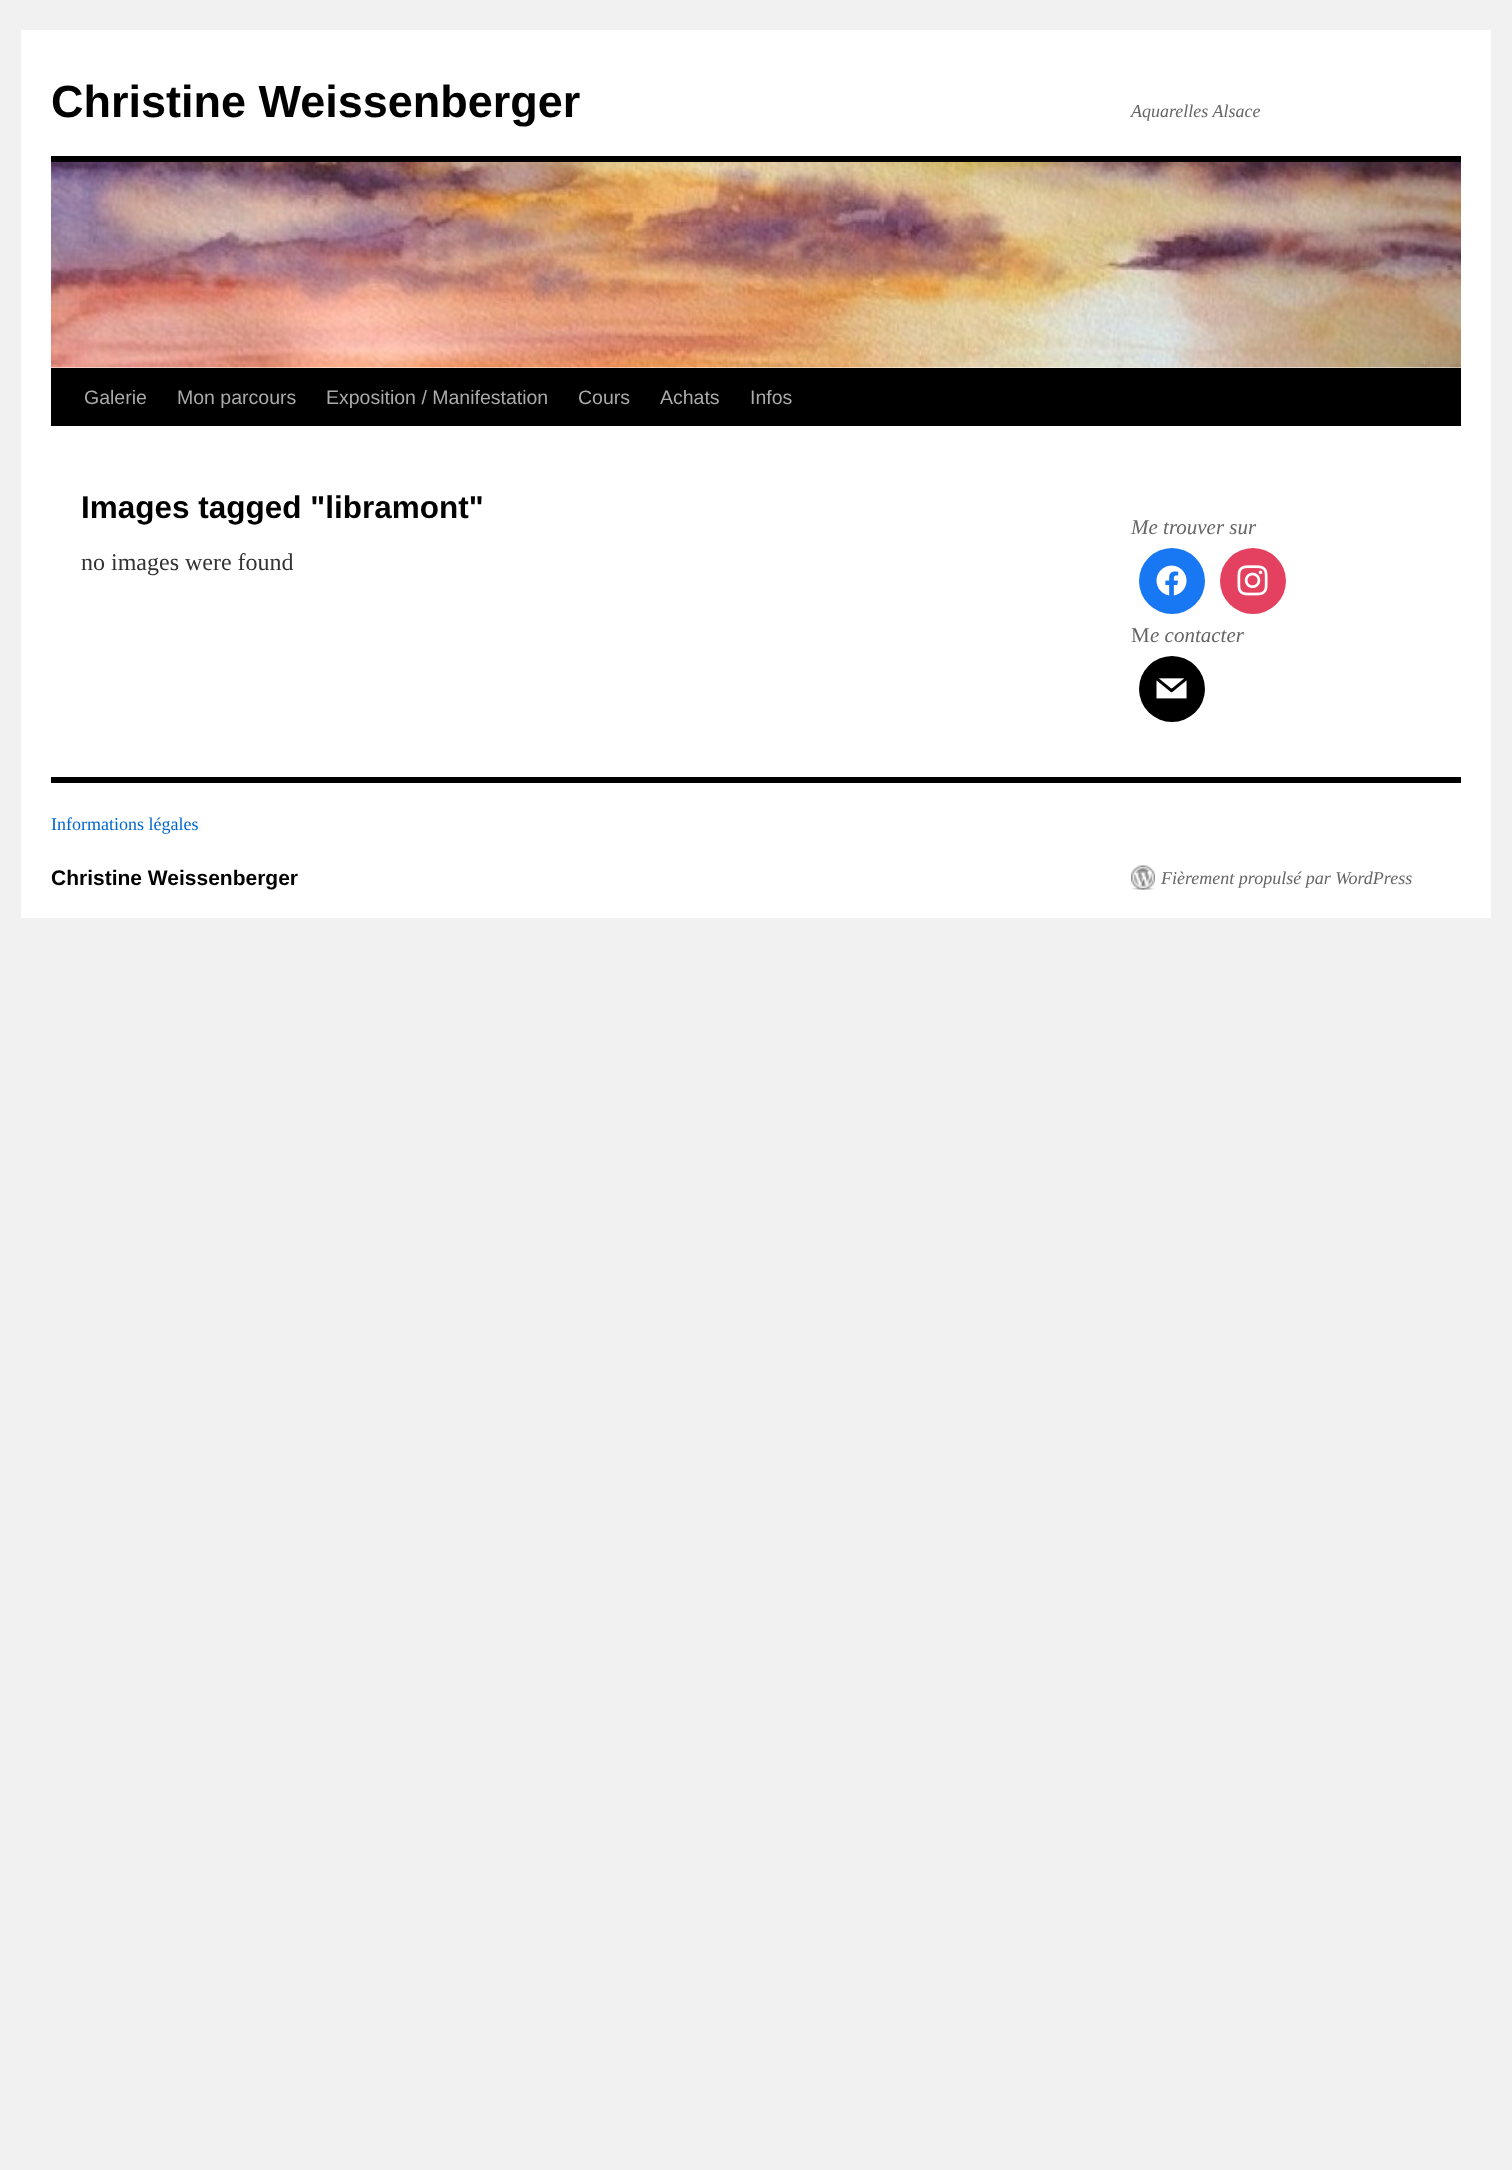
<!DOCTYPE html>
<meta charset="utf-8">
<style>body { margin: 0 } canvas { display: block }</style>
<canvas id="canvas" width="1512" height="2170"></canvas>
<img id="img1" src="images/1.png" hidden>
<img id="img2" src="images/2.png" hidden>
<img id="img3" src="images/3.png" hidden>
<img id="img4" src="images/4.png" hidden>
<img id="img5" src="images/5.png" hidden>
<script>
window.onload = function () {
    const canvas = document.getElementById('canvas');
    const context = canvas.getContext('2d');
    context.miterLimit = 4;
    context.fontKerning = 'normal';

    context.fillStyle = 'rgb(241, 241, 241)';
    context.fillRect(0, 0, 1512, 2170);
    context.fillStyle = 'rgb(255, 255, 255)';
    context.fillRect(21, 30, 1470, 888);
    context.fillStyle = 'rgb(0, 0, 0)';
    context.fillRect(51, 156, 1410, 6);
    context.fillRect(51, 368, 1410, 58);
    context.drawImage(document.getElementById('img1'), 51, 162, 1410, 206);
    context.fillStyle = 'rgb(24, 119, 242)';
    context.beginPath();
    context.arc(1172, 581, 33, 0, 2 * Math.PI);
    context.fill();
    context.drawImage(document.getElementById('img2'), 1156, 565, 31, 31);
    context.fillStyle = 'rgb(228, 64, 95)';
    context.beginPath();
    context.arc(1253, 581, 33, 0, 2 * Math.PI);
    context.fill();
    context.drawImage(document.getElementById('img3'), 1237, 565, 31, 31);
    context.fillStyle = 'rgb(0, 0, 0)';
    context.beginPath();
    context.arc(1172, 689, 33, 0, 2 * Math.PI);
    context.fill();
    context.drawImage(document.getElementById('img4'), 1156, 678, 31, 21);
    context.fillRect(51, 777, 1410, 6);
    context.drawImage(document.getElementById('img5'), 1131, 865, 24, 25);
    context.font = 'bold 45px Liberation Sans';
    context.fillText('Christine Weissenberger', 51, 117);
    context.font = 'italic 18px Liberation Serif';
    context.fillStyle = 'rgb(102, 102, 102)';
    context.fillText('Aquarelles Alsace', 1131, 117);
    context.font = '19.5px Liberation Sans';
    context.fillStyle = 'rgb(170, 170, 170)';
    context.fillText('Galerie', 84, 404);
    context.fillText('Mon parcours', 177, 404);
    context.fillText('Exposition / Manifestation', 326, 404);
    context.fillText('Cours', 578, 404);
    context.fillText('Achats', 660, 404);
    context.fillText('Infos', 750, 404);
    context.font = 'bold 31.5px Liberation Sans';
    context.fillStyle = 'rgb(0, 0, 0)';
    context.fillText('Images tagged "libramont"', 81, 518);
    context.font = '24px Liberation Serif';
    context.fillStyle = 'rgb(51, 51, 51)';
    context.fillText('no images were found', 81, 570);
    context.font = 'italic 21px Liberation Serif';
    context.fillStyle = 'rgb(102, 102, 102)';
    context.fillText('Me trouver sur', 1131, 534);
    context.font = '21px Liberation Serif';
    context.fillText('M', 1131, 642);
    context.font = 'italic 21px Liberation Serif';
    context.fillText('e contacter', 1150, 642);
    context.font = '18px Liberation Serif';
    context.fillStyle = 'rgb(0, 102, 204)';
    context.fillText('Informations légales', 51, 830);
    context.font = 'bold 21px Liberation Sans';
    context.fillStyle = 'rgb(0, 0, 0)';
    context.fillText('Christine Weissenberger', 51, 885);
    context.font = 'italic 18px Liberation Serif';
    context.fillStyle = 'rgb(102, 102, 102)';
    context.fillText('Fièrement propulsé par WordPress', 1161, 884);
};
</script>
